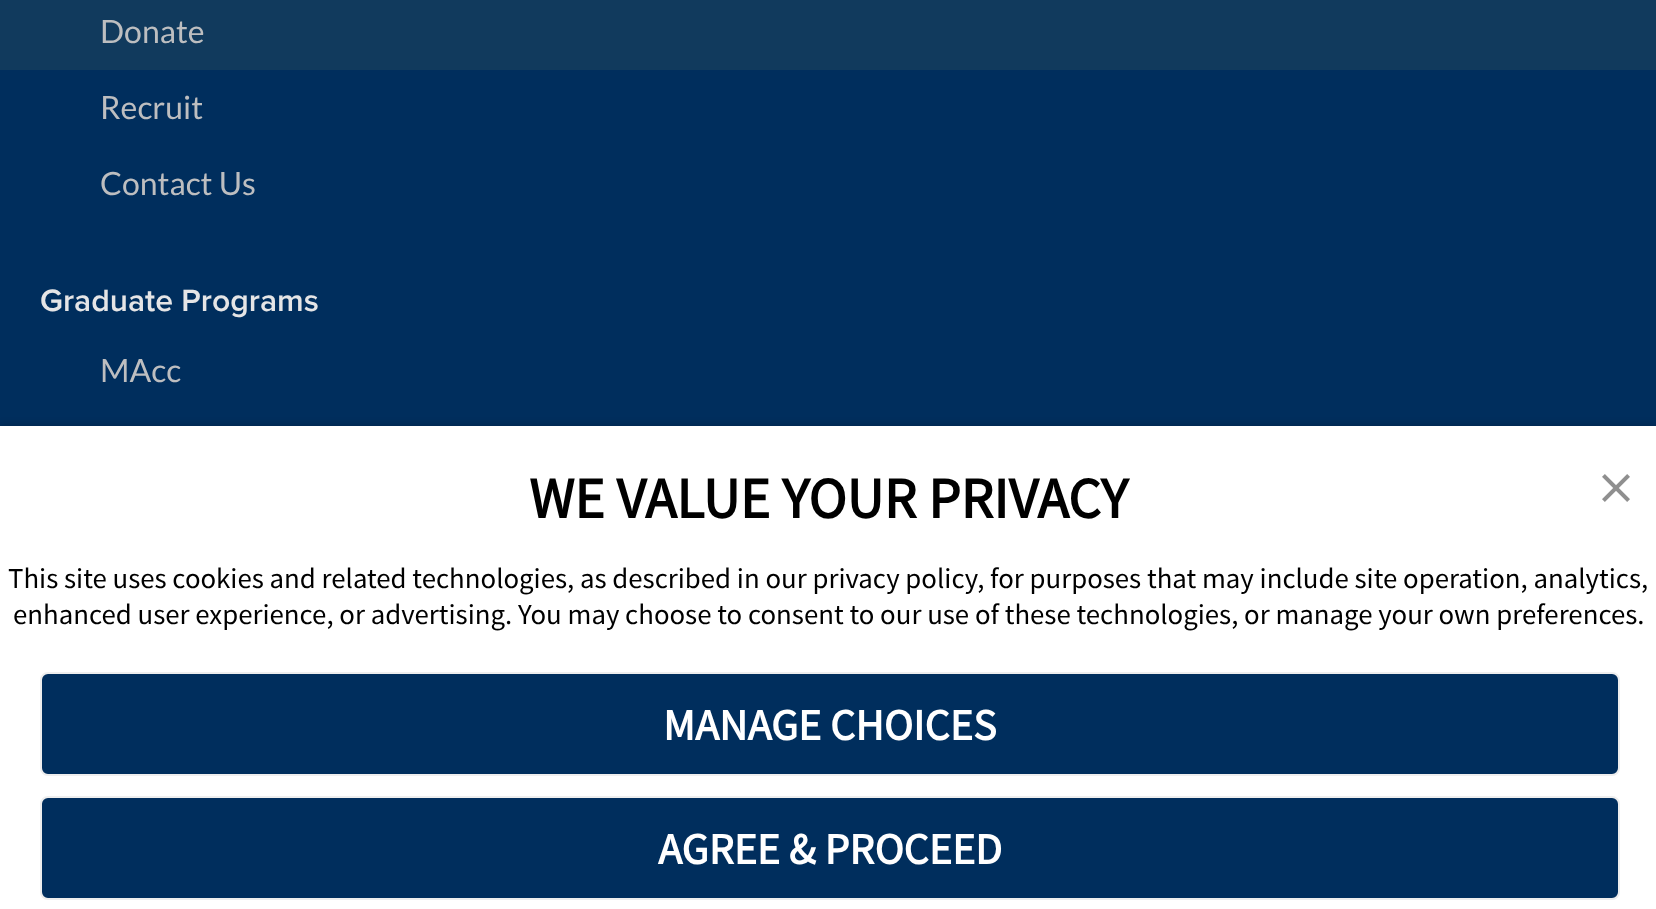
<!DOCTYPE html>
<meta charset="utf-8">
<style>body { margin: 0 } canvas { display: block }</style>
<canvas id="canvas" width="1656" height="909"></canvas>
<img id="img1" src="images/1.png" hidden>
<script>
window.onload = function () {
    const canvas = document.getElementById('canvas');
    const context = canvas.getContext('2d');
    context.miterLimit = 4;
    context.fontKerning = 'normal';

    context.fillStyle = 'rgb(0, 46, 93)';
    context.fillRect(0, 0, 1656, 909);
    context.fillStyle = 'rgb(17, 58, 93)';
    context.fillRect(0, 0, 1656, 70);
    context.fillStyle = 'rgba(0, 0, 0, 0.2)';
    context.filter = 'blur(4px)';
    context.beginPath();
    context.rect(0, 426, 1656, 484);
    context.fill();
    context.filter = 'none';
    context.fillStyle = 'rgb(255, 255, 255)';
    context.fillRect(0, 426, 1656, 483);
    context.drawImage(document.getElementById('img1'), 1602, 474, 28, 28);
    context.fillStyle = 'rgb(0, 46, 93)';
    context.beginPath();
    context.roundRect(41, 673, 1578, 102, 7);
    context.fill();
    context.strokeStyle = 'rgb(238, 238, 238)';
    context.lineWidth = 2;
    context.stroke();
    context.beginPath();
    context.roundRect(41, 797, 1578, 102, 7);
    context.fill();
    context.stroke();
    context.font = '32px Lato';
    context.fillStyle = 'rgb(189, 190, 192)';
    context.fillText('Donate', 100, 43);
    context.fillText('Recruit', 100, 119);
    context.fillText('Contact Us', 100, 195);
    context.font = '600 32px Proxima Nova';
    context.fillStyle = 'rgb(229, 229, 230)';
    context.fillText('Graduate Programs', 40, 311);
    context.font = '32px Lato';
    context.fillStyle = 'rgb(189, 190, 192)';
    context.fillText('MAcc', 100, 382);
    context.font = 'bold 57.6px Source Sans Pro';
    context.fillStyle = 'rgb(0, 0, 0)';
    context.fillText('WE VALUE YOUR PRIVACY', 529, 518);
    context.font = '28.8px Source Sans Pro';
    context.fillText('This site uses cookies and related technologies, as described in our privacy policy, for purposes that may include site operation, analytics,', 8, 588);
    context.fillText('enhanced user experience, or advertising. You may choose to consent to our use of these technologies, or manage your own preferences.', 13, 624);
    context.font = 'bold 44px Source Sans Pro';
    context.fillStyle = 'rgb(255, 255, 255)';
    context.fillText('MANAGE CHOICES', 663, 740);
    context.fillText('AGREE & PROCEED', 658, 864);
};
</script>
